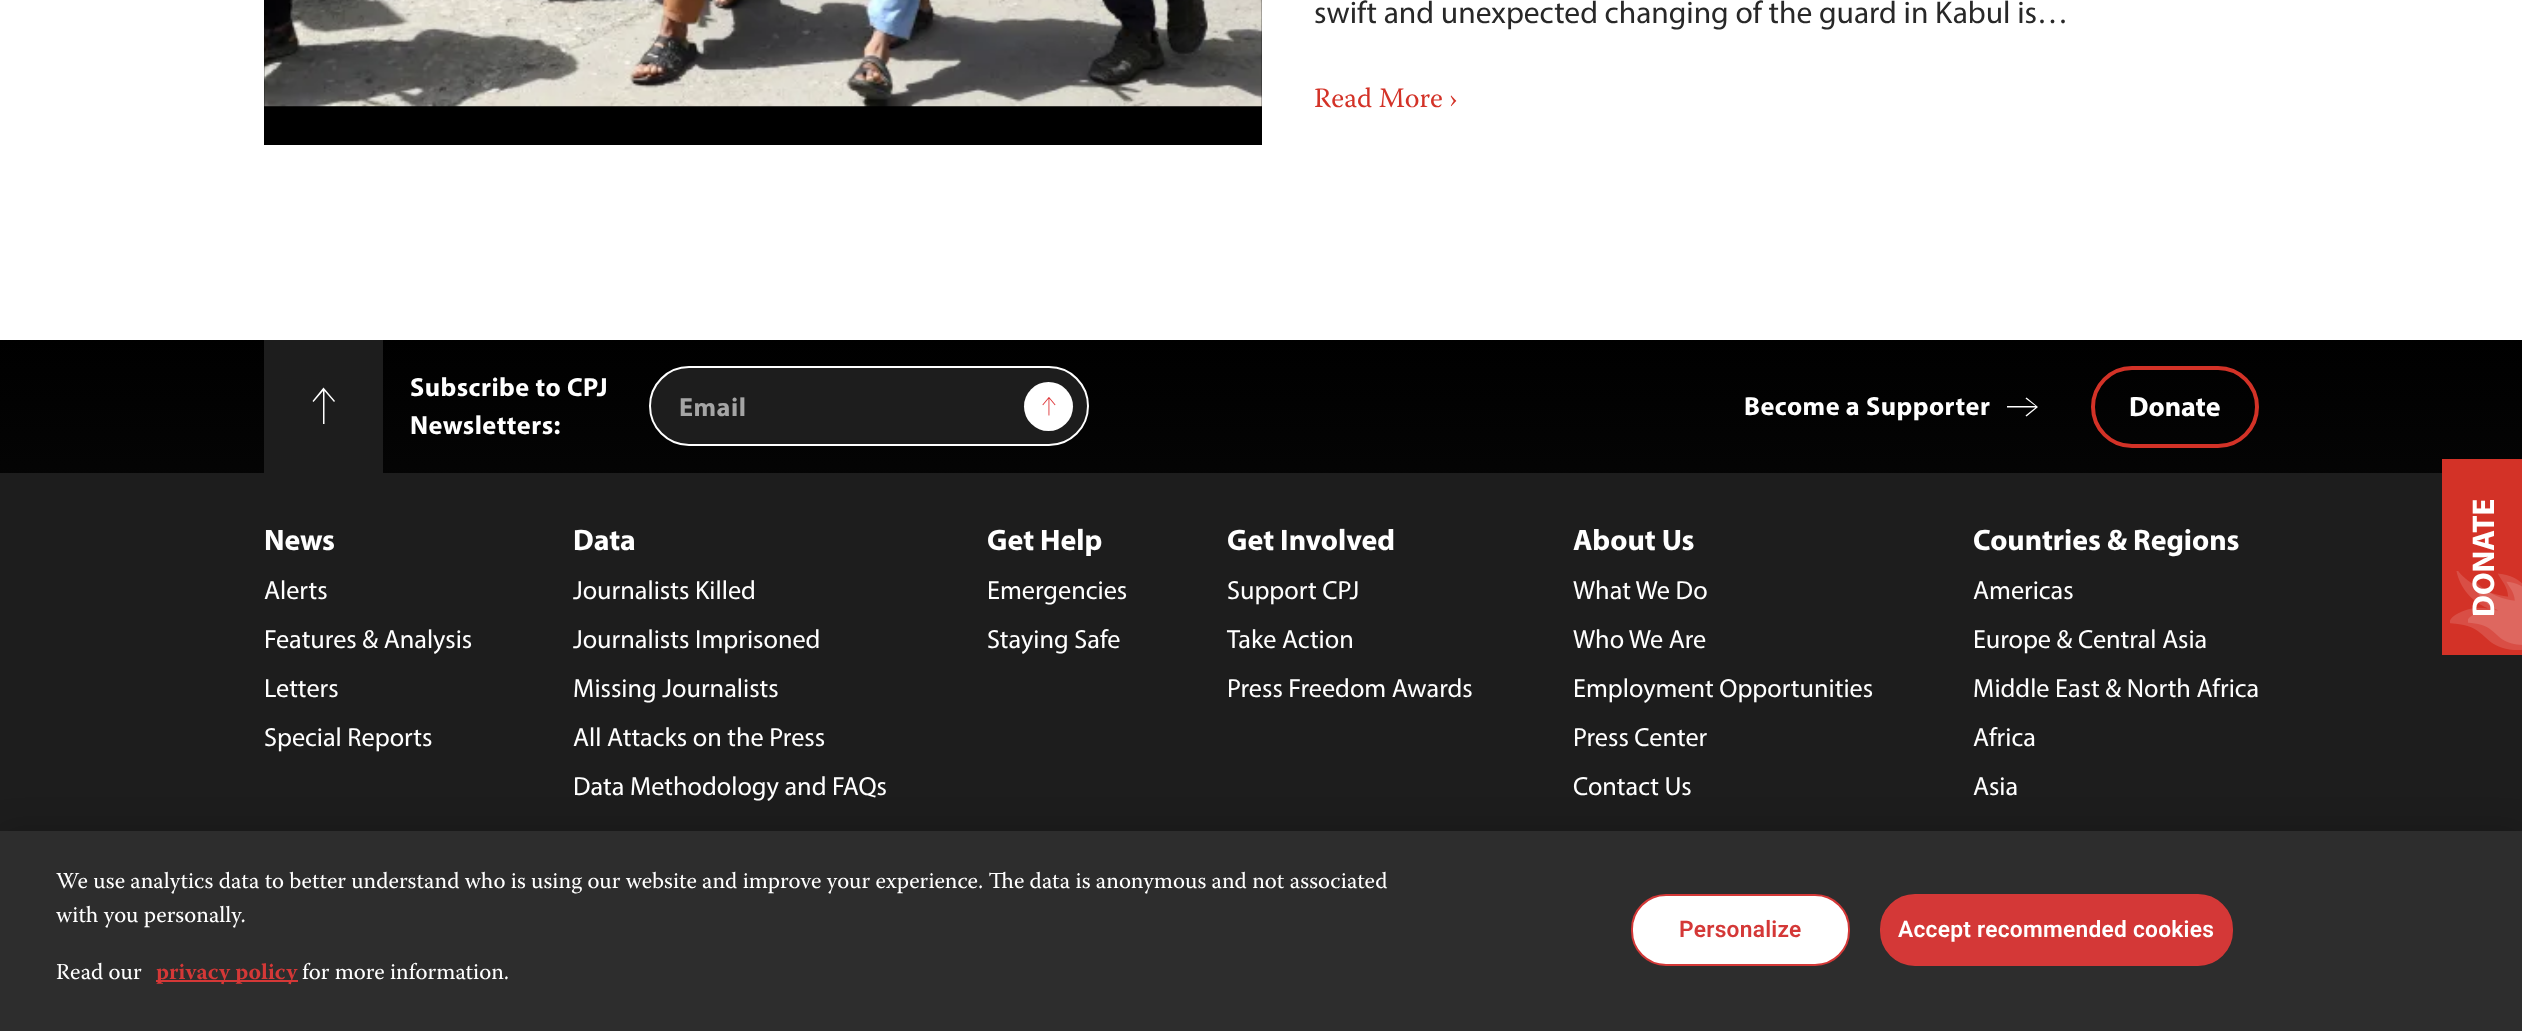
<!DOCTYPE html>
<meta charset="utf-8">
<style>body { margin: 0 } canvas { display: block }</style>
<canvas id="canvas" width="2522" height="1031"></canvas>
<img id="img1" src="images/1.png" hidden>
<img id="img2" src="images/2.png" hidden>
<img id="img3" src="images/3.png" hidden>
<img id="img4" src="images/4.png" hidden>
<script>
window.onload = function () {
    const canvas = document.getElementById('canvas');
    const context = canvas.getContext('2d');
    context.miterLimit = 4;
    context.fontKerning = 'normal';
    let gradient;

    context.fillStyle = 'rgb(255, 255, 255)';
    context.fillRect(0, 0, 2522, 1031);
    context.fillStyle = 'rgb(0, 0, 0)';
    context.fillRect(264, 0, 998, 145);
    context.drawImage(document.getElementById('img1'), 264, 0, 998, 107);
    gradient = context.createLinearGradient(1262, 339, 1262, 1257);
    gradient.addColorStop(0, 'rgb(0, 0, 0)');
    gradient.addColorStop(1, 'rgb(29, 29, 29)');
    context.fillStyle = gradient;
    context.fillRect(0, 340, 2522, 133);
    context.fillStyle = 'rgb(29, 29, 29)';
    context.fillRect(264, 340, 119, 133);
    context.fillStyle = 'rgb(255, 255, 255)';
    context.beginPath();
    context.moveTo(324.5, 391);
    context.lineTo(334, 402);
    context.lineTo(335, 401);
    context.lineTo(323.5, 387.5);
    context.lineTo(312.5, 401);
    context.lineTo(313.5, 402);
    context.lineTo(323, 391);
    context.lineTo(323, 424);
    context.lineTo(324.5, 424);
    context.closePath();
    context.fill('evenodd');
    context.fillStyle = 'rgb(29, 29, 29)';
    context.beginPath();
    context.roundRect(650, 367, 438, 78, 39);
    context.fill();
    context.strokeStyle = 'rgb(255, 255, 255)';
    context.lineWidth = 2;
    context.stroke();
    context.fillStyle = 'rgb(255, 255, 255)';
    context.beginPath();
    context.arc(1048.5, 406.5, 24.5, 0, 2 * Math.PI);
    context.fill();
    context.drawImage(document.getElementById('img2'), 1042, 397, 14, 19);
    context.beginPath();
    context.moveTo(2035.5, 407.5);
    context.lineTo(2025.5, 415.5);
    context.lineTo(2026.5, 416.5);
    context.lineTo(2038, 407);
    context.lineTo(2026.5, 397.5);
    context.lineTo(2025.5, 398.5);
    context.lineTo(2035.5, 406);
    context.lineTo(2007, 406);
    context.lineTo(2007, 407.5);
    context.closePath();
    context.fill('evenodd');
    context.beginPath();
    context.roundRect(2093, 368, 164, 78, 39);
    context.strokeStyle = 'rgb(211, 50, 39)';
    context.lineWidth = 4;
    context.stroke();
    context.fillStyle = 'rgb(29, 29, 29)';
    context.fillRect(0, 473, 2522, 358);
    context.fillStyle = 'rgb(211, 50, 39)';
    context.fillRect(2442, 459, 80, 196);
    context.drawImage(document.getElementById('img3'), 2450, 571, 72, 79);
    context.drawImage(document.getElementById('img4'), 2468, 579, 54, 66);
    context.fillStyle = 'rgba(0, 0, 0, 0.2)';
    context.filter = 'blur(16px)';
    context.beginPath();
    context.rect(0, 831, 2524, 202);
    context.fill();
    context.filter = 'none';
    context.fillStyle = 'rgb(45, 45, 45)';
    context.fillRect(0, 831, 2522, 200);
    context.fillStyle = 'rgb(212, 56, 55)';
    context.fillRect(156, 980, 142, 2);
    context.fillStyle = 'rgb(255, 255, 255)';
    context.beginPath();
    context.roundRect(1632, 895, 217, 70, 34);
    context.fill();
    context.strokeStyle = 'rgb(212, 56, 55)';
    context.lineWidth = 2;
    context.stroke();
    context.fillStyle = 'rgb(212, 56, 55)';
    context.beginPath();
    context.roundRect(1881, 895, 351, 70, 34);
    context.fill();
    context.stroke();
    context.font = '31.5px Myriad';
    context.fillStyle = 'rgb(40, 40, 40)';
    context.fillText('swift and unexpected changing of the guard in Kabul is…', 1314, 23);
    context.font = '28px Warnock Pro';
    context.fillStyle = 'rgb(211, 50, 39)';
    context.fillText('Read More ›', 1314, 107);
    context.letterSpacing = '0.5px';
    context.font = 'bold 26.25px Myriad';
    context.fillStyle = 'rgb(255, 255, 255)';
    context.fillText('Subscribe to CPJ', 410, 396);
    context.fillText('Newsletters:', 410, 434);
    context.fillStyle = 'rgb(165, 165, 165)';
    context.fillText('Email', 679, 416);
    context.fillStyle = 'rgb(255, 255, 255)';
    context.fillText('Become a Supporter', 1744, 415);
    context.letterSpacing = '0px';
    context.font = 'bold 28px Myriad';
    context.fillText('Donate', 2129, 416);
    context.font = 'bold 29.75px Myriad';
    context.fillText('News', 264, 550);
    context.font = '26.25px Myriad';
    context.fillText('Alerts', 264, 599);
    context.fillText('Features & Analysis', 264, 648);
    context.fillText('Letters', 264, 697);
    context.fillText('Special Reports', 264, 746);
    context.font = 'bold 29.75px Myriad';
    context.fillText('Data', 573, 550);
    context.font = '26.25px Myriad';
    context.fillText('Journalists Killed', 573, 599);
    context.fillText('Journalists Imprisoned', 573, 648);
    context.fillText('Missing Journalists', 573, 697);
    context.fillText('All Attacks on the Press', 573, 746);
    context.fillText('Data Methodology and FAQs', 573, 795);
    context.font = 'bold 29.75px Myriad';
    context.fillText('Get Help', 987, 550);
    context.font = '26.25px Myriad';
    context.fillText('Emergencies', 987, 599);
    context.fillText('Staying Safe', 987, 648);
    context.font = 'bold 29.75px Myriad';
    context.fillText('Get Involved', 1227, 550);
    context.font = '26.25px Myriad';
    context.fillText('Support CPJ', 1227, 599);
    context.fillText('Take Action', 1227, 648);
    context.fillText('Press Freedom Awards', 1227, 697);
    context.font = 'bold 29.75px Myriad';
    context.fillText('About Us', 1573, 550);
    context.font = '26.25px Myriad';
    context.fillText('What We Do', 1573, 599);
    context.fillText('Who We Are', 1573, 648);
    context.fillText('Employment Opportunities', 1573, 697);
    context.fillText('Press Center', 1573, 746);
    context.fillText('Contact Us', 1573, 795);
    context.font = 'bold 29.75px Myriad';
    context.fillText('Countries & Regions', 1973, 550);
    context.font = '26.25px Myriad';
    context.fillText('Americas', 1973, 599);
    context.fillText('Europe & Central Asia', 1973, 648);
    context.fillText('Middle East & North Africa', 1973, 697);
    context.fillText('Africa', 1973, 746);
    context.fillText('Asia', 1973, 795);
    context.font = 'bold 31.5px Myriad';
    context.save();
    context.translate(2494, 617);
    context.rotate(-90 * Math.PI / 180);
    context.fillText('DONATE', 0, 0);
    context.restore();
    context.font = '22.75px Warnock Pro';
    context.fillText('We use analytics data to better understand who is using our website and improve your experience. The data is anonymous and not associated', 56, 888);
    context.fillText('with you personally.', 56, 922);
    context.fillText('Read our', 56, 979);
    context.font = 'bold 22.75px Warnock Pro';
    context.fillStyle = 'rgb(212, 56, 55)';
    context.fillText('privacy policy', 156, 979);
    context.font = '22.75px Warnock Pro';
    context.fillStyle = 'rgb(255, 255, 255)';
    context.fillText('for more information.', 302, 979);
    context.letterSpacing = '0.25px';
    context.font = '600 22.75px Roboto';
    context.fillStyle = 'rgb(212, 56, 55)';
    context.fillText('Personalize', 1679, 937);
    context.fillStyle = 'rgb(255, 255, 255)';
    context.fillText('Accept recommended cookies', 1898, 937);
};
</script>
